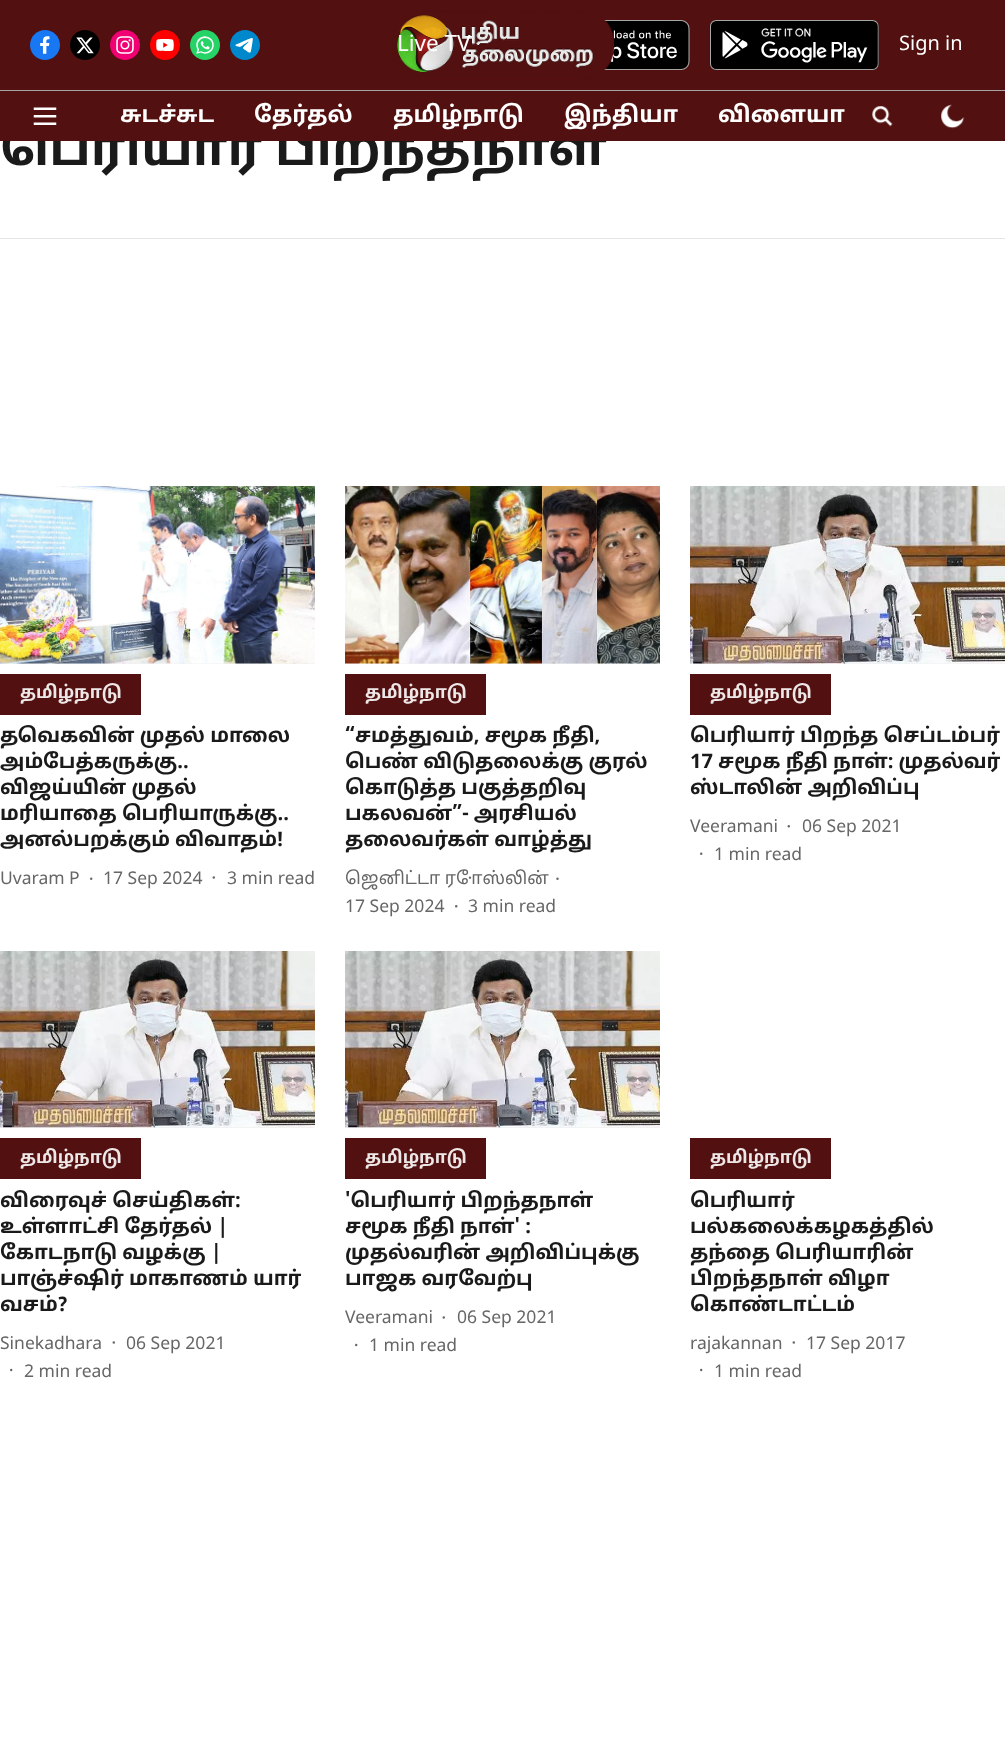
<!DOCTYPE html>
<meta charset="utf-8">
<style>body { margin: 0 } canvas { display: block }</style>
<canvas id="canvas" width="1005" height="1755"></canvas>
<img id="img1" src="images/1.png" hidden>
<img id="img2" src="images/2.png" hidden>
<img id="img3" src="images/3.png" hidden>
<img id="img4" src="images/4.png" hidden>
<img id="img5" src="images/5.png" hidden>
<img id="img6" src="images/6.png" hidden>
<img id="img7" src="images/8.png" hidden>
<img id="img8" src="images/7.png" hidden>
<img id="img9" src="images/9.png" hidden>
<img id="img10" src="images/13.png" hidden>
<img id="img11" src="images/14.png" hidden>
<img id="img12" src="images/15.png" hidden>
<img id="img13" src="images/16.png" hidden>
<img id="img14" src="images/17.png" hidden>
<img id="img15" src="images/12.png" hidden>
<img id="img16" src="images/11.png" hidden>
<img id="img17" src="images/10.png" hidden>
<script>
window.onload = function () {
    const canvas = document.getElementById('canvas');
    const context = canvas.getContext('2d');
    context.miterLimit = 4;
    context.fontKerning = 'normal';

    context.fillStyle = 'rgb(255, 255, 255)';
    context.fillRect(0, 0, 1005, 1755);
    context.fillStyle = 'rgb(82, 16, 16)';
    context.fillRect(0, 0, 1005, 90);
    context.fillStyle = 'rgb(164, 164, 164)';
    context.fillRect(0, 90, 1005, 1);
    context.drawImage(document.getElementById('img1'), 30, 30, 30, 30);
    context.drawImage(document.getElementById('img2'), 70, 30, 30, 30);
    context.drawImage(document.getElementById('img3'), 110, 30, 30, 30);
    context.drawImage(document.getElementById('img4'), 150, 30, 30, 30);
    context.drawImage(document.getElementById('img5'), 190, 30, 30, 30);
    context.drawImage(document.getElementById('img6'), 230, 30, 30, 30);
    context.drawImage(document.getElementById('img7'), 603, 20, 87, 50);
    context.drawImage(document.getElementById('img8'), 391, 10, 224, 70);
    context.drawImage(document.getElementById('img9'), 710, 20, 169, 50);
    context.fillStyle = 'rgb(230, 230, 230)';
    context.fillRect(0, 238, 1005, 1);
    context.fillStyle = 'rgb(240, 240, 240)';
    context.fillRect(0, 663, 315, 1);
    context.drawImage(document.getElementById('img10'), 0, 486, 315, 178);
    context.fillStyle = 'rgb(82, 16, 16)';
    context.fillRect(0, 674, 141, 41);
    context.fillStyle = 'rgb(102, 102, 102)';
    context.beginPath();
    context.arc(91.2, 878.8, 1.2, 0, 2 * Math.PI);
    context.fill();
    context.beginPath();
    context.arc(213.8, 877.5, 1.2, 0, 2 * Math.PI);
    context.fill();
    context.fillStyle = 'rgb(240, 240, 240)';
    context.fillRect(345, 663, 315, 1);
    context.drawImage(document.getElementById('img11'), 345, 486, 315, 178);
    context.fillStyle = 'rgb(82, 16, 16)';
    context.fillRect(345, 674, 141, 41);
    context.fillStyle = 'rgb(102, 102, 102)';
    context.beginPath();
    context.arc(557.5, 878.8, 1.2, 0, 2 * Math.PI);
    context.fill();
    context.beginPath();
    context.arc(456.2, 906.2, 1.2, 0, 2 * Math.PI);
    context.fill();
    context.fillStyle = 'rgb(240, 240, 240)';
    context.fillRect(690, 663, 315, 1);
    context.drawImage(document.getElementById('img12'), 690, 486, 315, 178);
    context.fillStyle = 'rgb(82, 16, 16)';
    context.fillRect(690, 674, 141, 41);
    context.fillStyle = 'rgb(102, 102, 102)';
    context.beginPath();
    context.arc(788.8, 826.2, 1.2, 0, 2 * Math.PI);
    context.fill();
    context.beginPath();
    context.arc(701.2, 853.8, 1.2, 0, 2 * Math.PI);
    context.fill();
    context.fillStyle = 'rgb(240, 240, 240)';
    context.fillRect(0, 1127, 315, 1);
    context.drawImage(document.getElementById('img13'), 0, 951, 315, 177);
    context.fillStyle = 'rgb(82, 16, 16)';
    context.fillRect(0, 1138, 141, 41);
    context.fillStyle = 'rgb(102, 102, 102)';
    context.beginPath();
    context.arc(113.8, 1342.5, 1.2, 0, 2 * Math.PI);
    context.fill();
    context.beginPath();
    context.arc(11.2, 1370, 1.2, 0, 2 * Math.PI);
    context.fill();
    context.fillStyle = 'rgb(240, 240, 240)';
    context.fillRect(345, 1127, 315, 1);
    context.drawImage(document.getElementById('img14'), 345, 951, 315, 177);
    context.fillStyle = 'rgb(82, 16, 16)';
    context.fillRect(345, 1138, 141, 41);
    context.fillStyle = 'rgb(102, 102, 102)';
    context.beginPath();
    context.arc(443.8, 1317.5, 1.2, 0, 2 * Math.PI);
    context.fill();
    context.beginPath();
    context.arc(356.2, 1345, 1.2, 0, 2 * Math.PI);
    context.fill();
    context.fillStyle = 'rgb(82, 16, 16)';
    context.fillRect(690, 1138, 141, 41);
    context.fillStyle = 'rgb(102, 102, 102)';
    context.beginPath();
    context.arc(793.8, 1342.5, 1.2, 0, 2 * Math.PI);
    context.fill();
    context.beginPath();
    context.arc(701.2, 1370, 1.2, 0, 2 * Math.PI);
    context.fill();
    context.font = '22.5px Noto Sans Tamil';
    context.fillStyle = 'rgb(255, 255, 255)';
    context.fillText('Live TV', 397, 51);
    context.font = '20px Noto Sans Tamil';
    context.fillText('Sign in', 899, 50);
    context.font = 'bold 50px Noto Sans Tamil';
    context.fillStyle = 'rgb(26, 26, 26)';
    context.fillText('பெரியார் பிறந்தநாள்', 0, 165);
    context.fillStyle = 'rgb(82, 16, 16)';
    context.fillRect(0, 91, 1005, 50);
    context.font = 'bold 22.5px Noto Sans Tamil';
    context.fillStyle = 'rgb(255, 255, 255)';
    context.fillText('விளையா', 718, 122);
    context.fillText('இந்தியா', 564, 122);
    context.fillText('தமிழ்நாடு', 393, 122);
    context.fillText('தேர்தல்', 254, 122);
    context.fillText('சுடச்சுட', 120, 122);
    context.drawImage(document.getElementById('img15'), 941, 104, 24, 25);
    context.drawImage(document.getElementById('img16'), 872, 106, 21, 21);
    context.drawImage(document.getElementById('img17'), 33, 107, 24, 18);
    context.font = 'bold 17.5px Noto Sans Tamil';
    context.fillStyle = 'rgb(238, 231, 231)';
    context.fillText('தமிழ்நாடு', 20, 698);
    context.font = 'bold 20px Noto Sans Tamil';
    context.fillStyle = 'rgb(26, 26, 26)';
    context.fillText('தவெகவின் முதல் மாலை', 0, 742);
    context.fillText('அம்பேத்கருக்கு..', 0, 768);
    context.fillText('விஜய்யின் முதல்', 0, 794);
    context.fillText('மரியாதை பெரியாருக்கு..', 0, 820);
    context.fillText('அனல்பறக்கும் விவாதம்!', 0, 846);
    context.font = '17.5px Noto Sans Tamil';
    context.fillStyle = 'rgb(102, 102, 102)';
    context.fillText('Uvaram P', 0, 884);
    context.fillText('17 Sep 2024', 103, 884);
    context.fillText('3 min read', 227, 884);
    context.font = 'bold 17.5px Noto Sans Tamil';
    context.fillStyle = 'rgb(238, 231, 231)';
    context.fillText('தமிழ்நாடு', 365, 698);
    context.font = 'bold 20px Noto Sans Tamil';
    context.fillStyle = 'rgb(26, 26, 26)';
    context.fillText('“சமத்துவம், சமூக நீதி,', 345, 742);
    context.fillText('பெண் விடுதலைக்கு குரல்', 345, 768);
    context.fillText('கொடுத்த பகுத்தறிவு', 345, 794);
    context.fillText('பகலவன்”- அரசியல்', 345, 820);
    context.fillText('தலைவர்கள் வாழ்த்து', 345, 846);
    context.font = '17.5px Noto Sans Tamil';
    context.fillStyle = 'rgb(102, 102, 102)';
    context.fillText('ஜெனிட்டா ரோஸ்லின்', 345, 884);
    context.fillText('17 Sep 2024', 345, 912);
    context.fillText('3 min read', 468, 912);
    context.font = 'bold 17.5px Noto Sans Tamil';
    context.fillStyle = 'rgb(238, 231, 231)';
    context.fillText('தமிழ்நாடு', 710, 698);
    context.font = 'bold 20px Noto Sans Tamil';
    context.fillStyle = 'rgb(26, 26, 26)';
    context.fillText('பெரியார் பிறந்த செப்டம்பர்', 690, 742);
    context.fillText('17 சமூக நீதி நாள்: முதல்வர்', 690, 768);
    context.fillText('ஸ்டாலின் அறிவிப்பு', 690, 794);
    context.font = '17.5px Noto Sans Tamil';
    context.fillStyle = 'rgb(102, 102, 102)';
    context.fillText('Veeramani', 690, 832);
    context.fillText('06 Sep 2021', 802, 832);
    context.fillText('1 min read', 714, 860);
    context.font = 'bold 17.5px Noto Sans Tamil';
    context.fillStyle = 'rgb(238, 231, 231)';
    context.fillText('தமிழ்நாடு', 20, 1163);
    context.font = 'bold 20px Noto Sans Tamil';
    context.fillStyle = 'rgb(26, 26, 26)';
    context.fillText('விரைவுச் செய்திகள்:', 0, 1207);
    context.fillText('உள்ளாட்சி தேர்தல் |', 0, 1233);
    context.fillText('கோடநாடு வழக்கு |', 0, 1259);
    context.fillText('பாஞ்ச்ஷிர் மாகாணம் யார்', 0, 1285);
    context.fillText('வசம்?', 0, 1311);
    context.font = '17.5px Noto Sans Tamil';
    context.fillStyle = 'rgb(102, 102, 102)';
    context.fillText('Sinekadhara', 0, 1349);
    context.fillText('06 Sep 2021', 126, 1349);
    context.fillText('2 min read', 24, 1377);
    context.font = 'bold 17.5px Noto Sans Tamil';
    context.fillStyle = 'rgb(238, 231, 231)';
    context.fillText('தமிழ்நாடு', 365, 1163);
    context.font = 'bold 20px Noto Sans Tamil';
    context.fillStyle = 'rgb(26, 26, 26)';
    context.fillText('\'பெரியார் பிறந்தநாள்', 345, 1207);
    context.fillText('சமூக நீதி நாள்\' :', 345, 1233);
    context.fillText('முதல்வரின் அறிவிப்புக்கு', 345, 1259);
    context.fillText('பாஜக வரவேற்பு', 345, 1285);
    context.font = '17.5px Noto Sans Tamil';
    context.fillStyle = 'rgb(102, 102, 102)';
    context.fillText('Veeramani', 345, 1323);
    context.fillText('06 Sep 2021', 457, 1323);
    context.fillText('1 min read', 369, 1351);
    context.font = 'bold 17.5px Noto Sans Tamil';
    context.fillStyle = 'rgb(238, 231, 231)';
    context.fillText('தமிழ்நாடு', 710, 1163);
    context.font = 'bold 20px Noto Sans Tamil';
    context.fillStyle = 'rgb(26, 26, 26)';
    context.fillText('பெரியார்', 690, 1207);
    context.fillText('பல்கலைக்கழகத்தில்', 690, 1233);
    context.fillText('தந்தை பெரியாரின்', 690, 1259);
    context.fillText('பிறந்தநாள் விழா', 690, 1285);
    context.fillText('கொண்டாட்டம்', 690, 1311);
    context.font = '17.5px Noto Sans Tamil';
    context.fillStyle = 'rgb(102, 102, 102)';
    context.fillText('rajakannan', 690, 1349);
    context.fillText('17 Sep 2017', 806, 1349);
    context.fillText('1 min read', 714, 1377);
};
</script>
